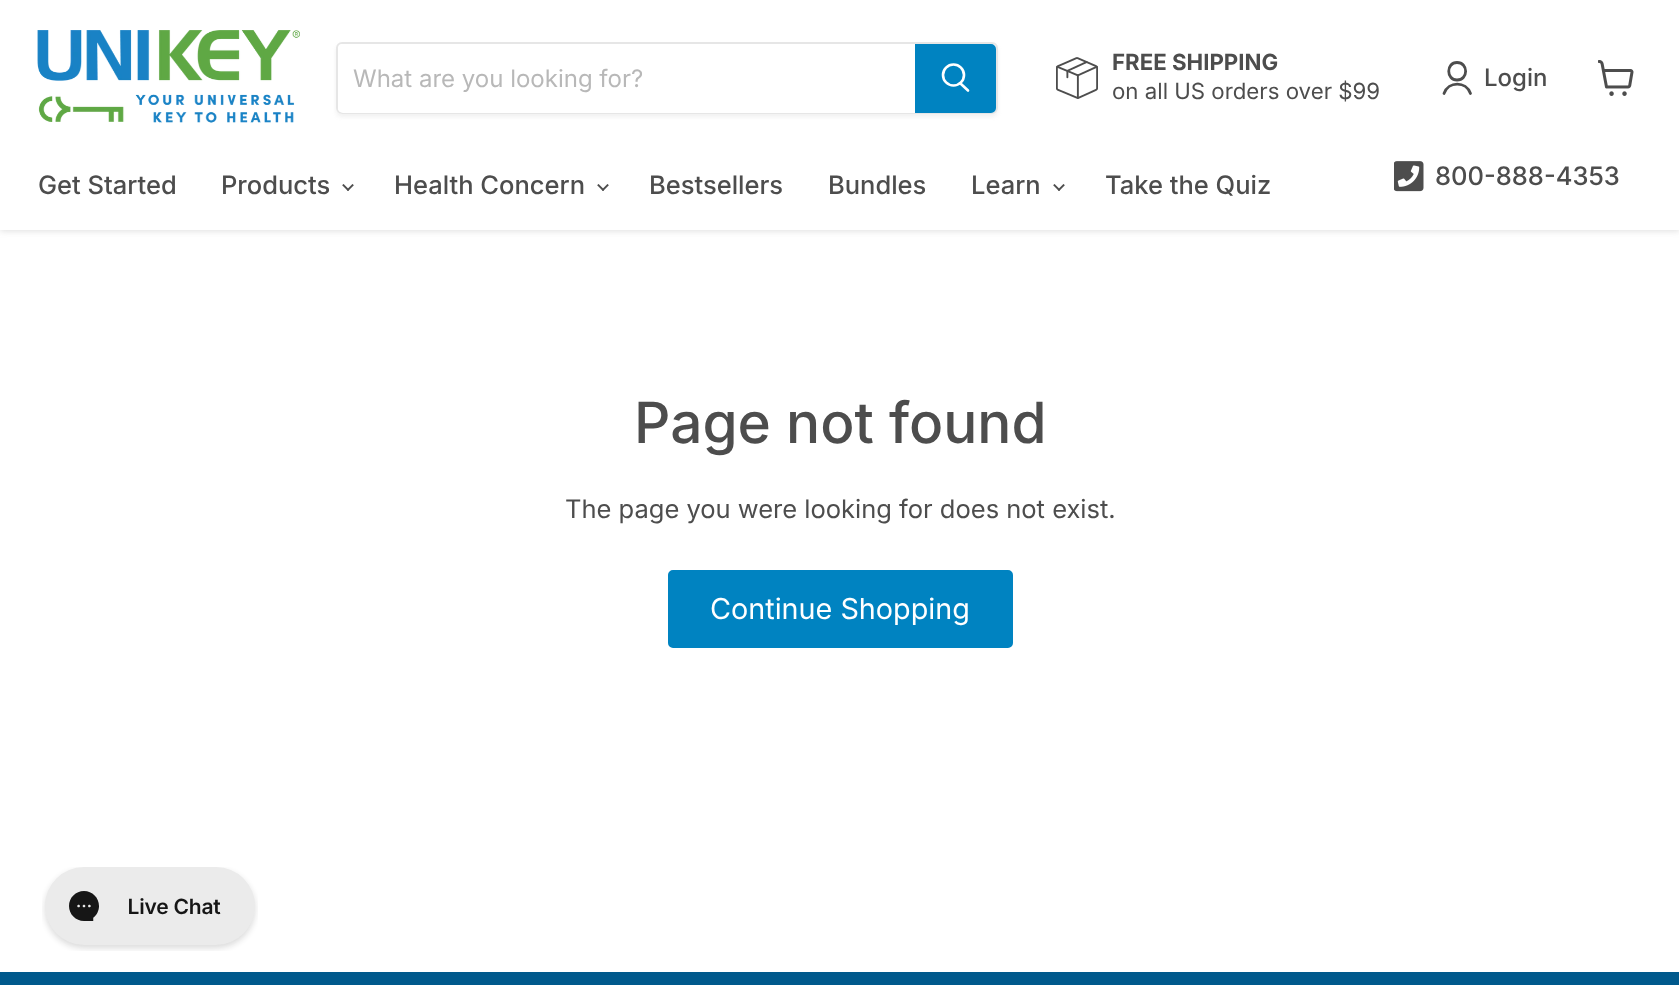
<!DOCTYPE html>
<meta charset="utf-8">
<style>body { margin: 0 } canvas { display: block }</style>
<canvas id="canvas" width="1679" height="985"></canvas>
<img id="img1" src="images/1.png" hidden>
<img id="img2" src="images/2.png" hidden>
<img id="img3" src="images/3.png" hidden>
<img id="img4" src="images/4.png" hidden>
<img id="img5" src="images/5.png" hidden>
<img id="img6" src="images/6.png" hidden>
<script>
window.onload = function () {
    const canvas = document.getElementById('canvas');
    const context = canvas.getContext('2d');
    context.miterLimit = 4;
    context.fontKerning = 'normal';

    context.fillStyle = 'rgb(255, 255, 255)';
    context.fillRect(0, 0, 1679, 985);
    context.fillStyle = 'rgba(128, 128, 128, 0.25)';
    context.filter = 'blur(3px)';
    context.beginPath();
    context.rect(0, 2, 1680, 229);
    context.fill();
    context.filter = 'none';
    context.fillStyle = 'rgb(255, 255, 255)';
    context.fillRect(0, 0, 1679, 230);
    context.drawImage(document.getElementById('img1'), 37, 30, 263, 93);
    context.save();
    context.beginPath();
    context.moveTo(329, 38);
    context.lineTo(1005, 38);
    context.lineTo(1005, 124);
    context.lineTo(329, 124);
    context.closePath();
    context.moveTo(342, 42);
    context.lineTo(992, 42);
    context.bezierCurveTo(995.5, 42, 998, 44.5, 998, 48);
    context.lineTo(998, 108);
    context.bezierCurveTo(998, 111.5, 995.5, 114, 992, 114);
    context.lineTo(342, 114);
    context.bezierCurveTo(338.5, 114, 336, 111.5, 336, 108);
    context.lineTo(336, 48);
    context.bezierCurveTo(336, 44.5, 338.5, 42, 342, 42);
    context.closePath();
    context.clip('evenodd');
    context.fillStyle = 'rgba(128, 128, 128, 0.11)';
    context.filter = 'blur(2px)';
    context.beginPath();
    context.roundRect(336, 45, 662, 72, 6);
    context.fill();
    context.filter = 'none';
    context.restore();
    context.beginPath();
    context.roundRect(337, 43, 660, 70, 5);
    context.strokeStyle = 'rgba(128, 128, 128, 0.2)';
    context.lineWidth = 2;
    context.stroke();
    context.beginPath();
    context.roundRect(338, 44, 577, 69, [5, 0, 0, 5]);
    context.fill();
    context.fillStyle = 'rgb(0, 131, 193)';
    context.beginPath();
    context.roundRect(916, 45, 79, 67, [0, 4, 4, 0]);
    context.fill();
    context.strokeStyle = 'rgb(0, 131, 193)';
    context.stroke();
    context.beginPath();
    context.moveTo(968, 90.5);
    context.lineTo(960.5, 83.5);
    context.strokeStyle = 'rgb(255, 255, 255)';
    context.lineWidth = 2.6;
    context.lineCap = 'round';
    context.stroke();
    context.beginPath();
    context.arc(953.5, 75, 10.5, 0, 2 * Math.PI);
    context.stroke();
    context.drawImage(document.getElementById('img2'), 1056, 57, 42, 42);
    context.beginPath();
    context.moveTo(1457, 80);
    context.bezierCurveTo(1468.5, 80, 1468.5, 62.5, 1457, 62.5);
    context.bezierCurveTo(1446, 62.5, 1446, 80, 1457, 80);
    context.closePath();
    context.moveTo(1470.5, 93.5);
    context.bezierCurveTo(1466, 81, 1448.5, 81, 1444, 93.5);
    context.strokeStyle = 'rgb(77, 77, 77)';
    context.lineWidth = 2.8;
    context.lineJoin = 'round';
    context.stroke();
    context.drawImage(document.getElementById('img3'), 1598, 60, 36, 36);
    context.drawImage(document.getElementById('img4'), 342, 184, 12, 7);
    context.drawImage(document.getElementById('img4'), 597, 184, 12, 7);
    context.drawImage(document.getElementById('img4'), 1053, 184, 12, 7);
    context.drawImage(document.getElementById('img5'), 1394, 161, 30, 31);
    context.beginPath();
    context.roundRect(669, 571, 343, 76, 4);
    context.fill();
    context.strokeStyle = 'rgb(0, 131, 193)';
    context.lineWidth = 2;
    context.lineJoin = 'miter';
    context.stroke();
    context.drawImage(document.getElementById('img6'), 42, 867, 216, 84);
    context.fillStyle = 'rgb(0, 89, 140)';
    context.fillRect(0, 972, 1679, 13);
    context.font = '24px Inter';
    context.fillStyle = 'rgb(184, 184, 184)';
    context.fillText('What are you looking for?', 353, 87);
    context.font = 'bold 22.25px Inter';
    context.fillStyle = 'rgb(77, 77, 77)';
    context.fillText('FREE SHIPPING', 1112, 70);
    context.font = '22.25px Inter';
    context.fillText('on all US orders over $99', 1112, 99);
    context.font = '500 24px Inter';
    context.fillText('Login', 1484, 86);
    context.font = '500 25.5px Inter';
    context.fillText('Get Started', 38, 194);
    context.fillText('Products', 221, 194);
    context.fillText('Health Concern', 394, 194);
    context.fillText('Bestsellers', 649, 194);
    context.fillText('Bundles', 828, 194);
    context.fillText('Learn', 971, 194);
    context.fillText('Take the Quiz', 1105, 194);
    context.fillText('800-888-4353', 1435, 185);
    context.font = '500 56.75px Inter';
    context.fillText('Page not found', 634, 443);
    context.font = '25.5px Inter';
    context.fillText('The page you were looking for does not exist.', 565, 518);
    context.font = '28.75px Inter';
    context.fillStyle = 'rgb(255, 255, 255)';
    context.fillText('Continue Shopping', 710, 619);
};
</script>
